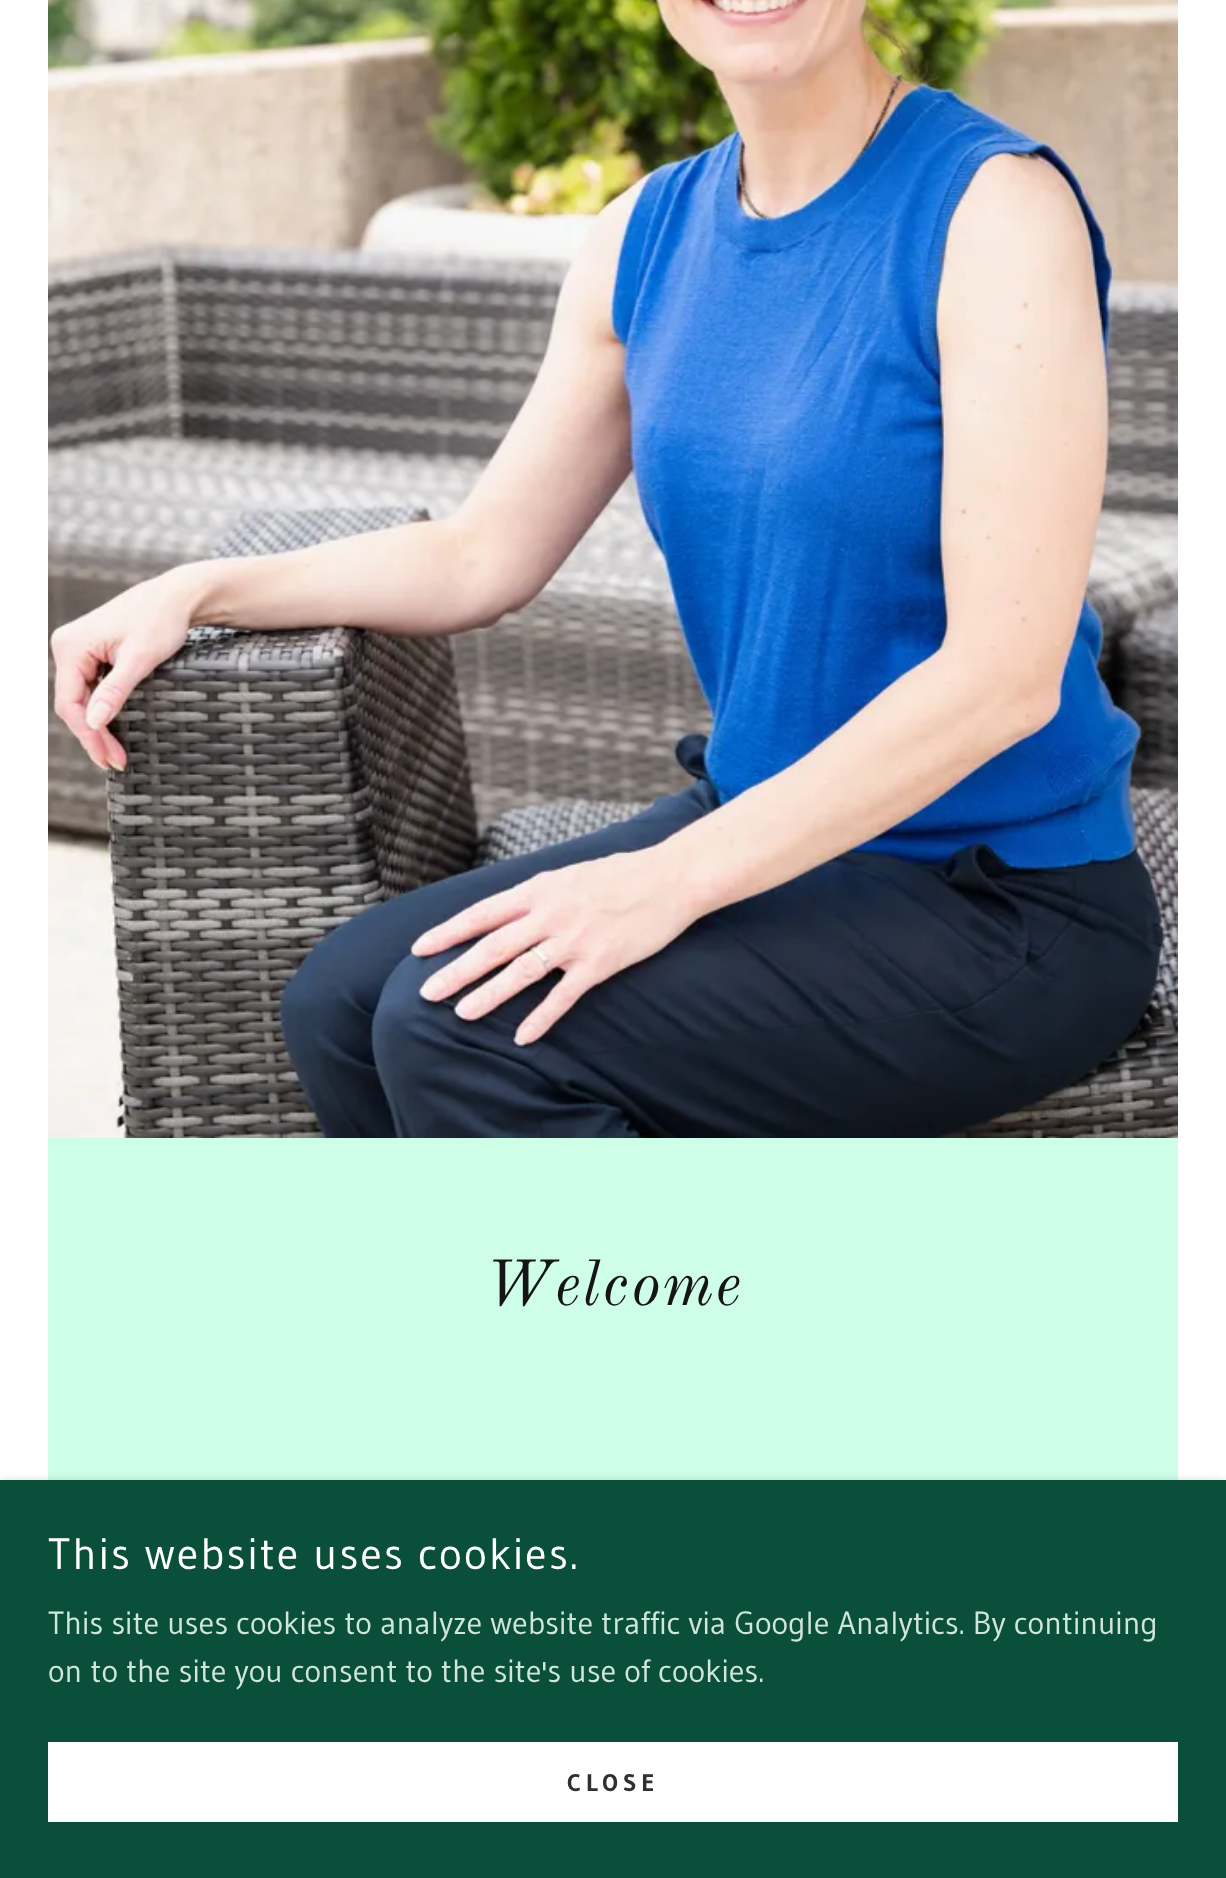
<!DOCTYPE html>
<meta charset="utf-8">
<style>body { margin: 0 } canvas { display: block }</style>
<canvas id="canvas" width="1226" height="1878"></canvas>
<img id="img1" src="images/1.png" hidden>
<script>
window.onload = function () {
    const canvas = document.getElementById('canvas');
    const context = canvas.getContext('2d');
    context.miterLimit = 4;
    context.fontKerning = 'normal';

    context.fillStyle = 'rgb(255, 255, 255)';
    context.fillRect(0, 0, 1226, 1878);
    context.drawImage(document.getElementById('img1'), 48, 0, 1130, 1138);
    context.fillStyle = 'rgb(206, 254, 232)';
    context.fillRect(48, 1138, 1130, 342);
    context.fillStyle = 'rgba(0, 0, 0, 0.3)';
    context.filter = 'blur(6px)';
    context.beginPath();
    context.rect(0, 1484, 1226, 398);
    context.fill();
    context.filter = 'none';
    context.fillStyle = 'rgb(10, 79, 57)';
    context.fillRect(0, 1480, 1226, 398);
    context.fillStyle = 'rgb(255, 255, 255)';
    context.fillRect(48, 1742, 1130, 80);
    context.letterSpacing = '1.5px';
    context.font = 'italic 64px Old Standard TT';
    context.fillStyle = 'rgb(21, 21, 21)';
    context.fillText('Welcome', 484, 1305);
    context.letterSpacing = '2px';
    context.font = '44px Gudea';
    context.fillStyle = 'rgb(255, 255, 255)';
    context.fillText('This website uses cookies.', 48, 1569);
    context.letterSpacing = '0px';
    context.font = '32px Gudea';
    context.fillStyle = 'rgb(209, 229, 219)';
    context.fillText('This site uses cookies to analyze website traffic via Google Analytics. By continuing', 48, 1634);
    context.fillText('on to the site you consent to the site\'s use of cookies.', 48, 1682);
    context.letterSpacing = '5px';
    context.font = 'bold 24px Gudea';
    context.fillStyle = 'rgb(48, 48, 48)';
    context.fillText('CLOSE', 567, 1791);
};
</script>
